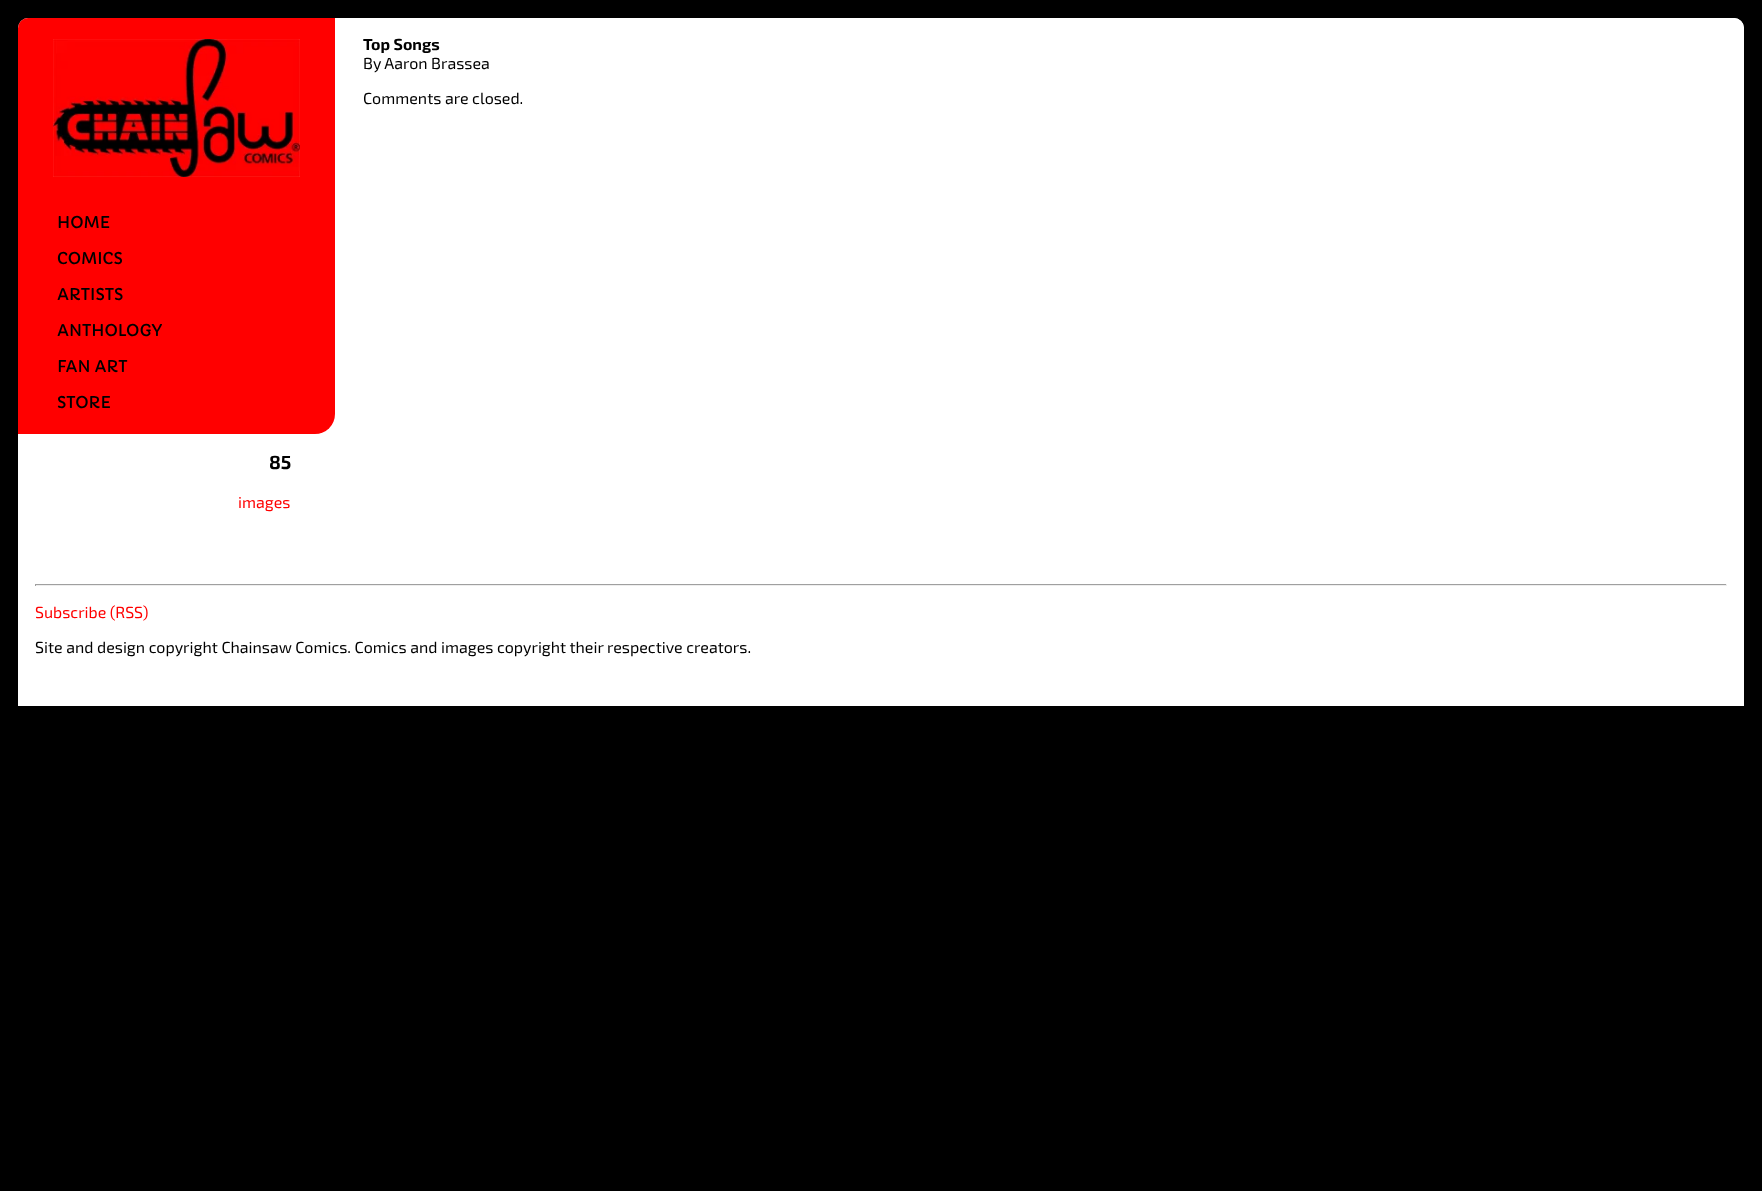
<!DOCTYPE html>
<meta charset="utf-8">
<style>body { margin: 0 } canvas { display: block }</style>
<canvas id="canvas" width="1762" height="1191"></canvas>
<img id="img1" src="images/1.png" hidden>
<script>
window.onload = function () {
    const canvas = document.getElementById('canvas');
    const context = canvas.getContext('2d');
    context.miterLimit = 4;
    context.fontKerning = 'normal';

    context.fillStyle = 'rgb(0, 0, 0)';
    context.fillRect(0, 0, 1762, 1191);
    context.fillStyle = 'rgb(255, 255, 255)';
    context.beginPath();
    context.roundRect(18, 18, 1726, 688, [10, 10, 0, 0]);
    context.fill();
    context.beginPath();
    context.roundRect(363, 18, 1381, 105, 10);
    context.fill();
    context.fillStyle = 'rgb(255, 0, 0)';
    context.beginPath();
    context.roundRect(18, 18, 317, 416, [10, 0, 20, 0]);
    context.fill();
    context.drawImage(document.getElementById('img1'), 53, 39, 247, 138);
    context.fillStyle = 'rgb(159, 159, 159)';
    context.fillRect(35, 584, 1692, 1);
    context.fillStyle = 'rgb(238, 238, 238)';
    context.fillRect(1726, 584, 1, 2);
    context.fillRect(35, 585, 1692, 1);
    context.fillStyle = 'rgb(159, 159, 159)';
    context.fillRect(35, 584, 1, 2);
    context.font = 'bold 16px "Exo 2"';
    context.fillStyle = 'rgb(0, 0, 0)';
    context.fillText('Top Songs', 363, 50);
    context.font = '16px "Exo 2"';
    context.fillText('By Aaron Brassea', 363, 69);
    context.fillText('Comments are closed.', 363, 104);
    context.font = '16px Capriola';
    context.fillText('HOME', 57, 228);
    context.fillText('COMICS', 57, 264);
    context.fillText('ARTISTS', 57, 300);
    context.fillText('ANTHOLOGY', 57, 336);
    context.fillText('FAN ART', 57, 372);
    context.fillText('STORE', 57, 408);
    context.font = 'bold 19px "Exo 2"';
    context.fillText('85', 269, 469);
    context.font = '16px "Exo 2"';
    context.fillStyle = 'rgb(255, 0, 0)';
    context.fillText('images', 238, 508);
    context.fillText('Subscribe (RSS)', 35, 618);
    context.fillStyle = 'rgb(0, 0, 0)';
    context.fillText('Site and design copyright Chainsaw Comics. Comics and images copyright their respective creators.', 35, 653);
};
</script>
